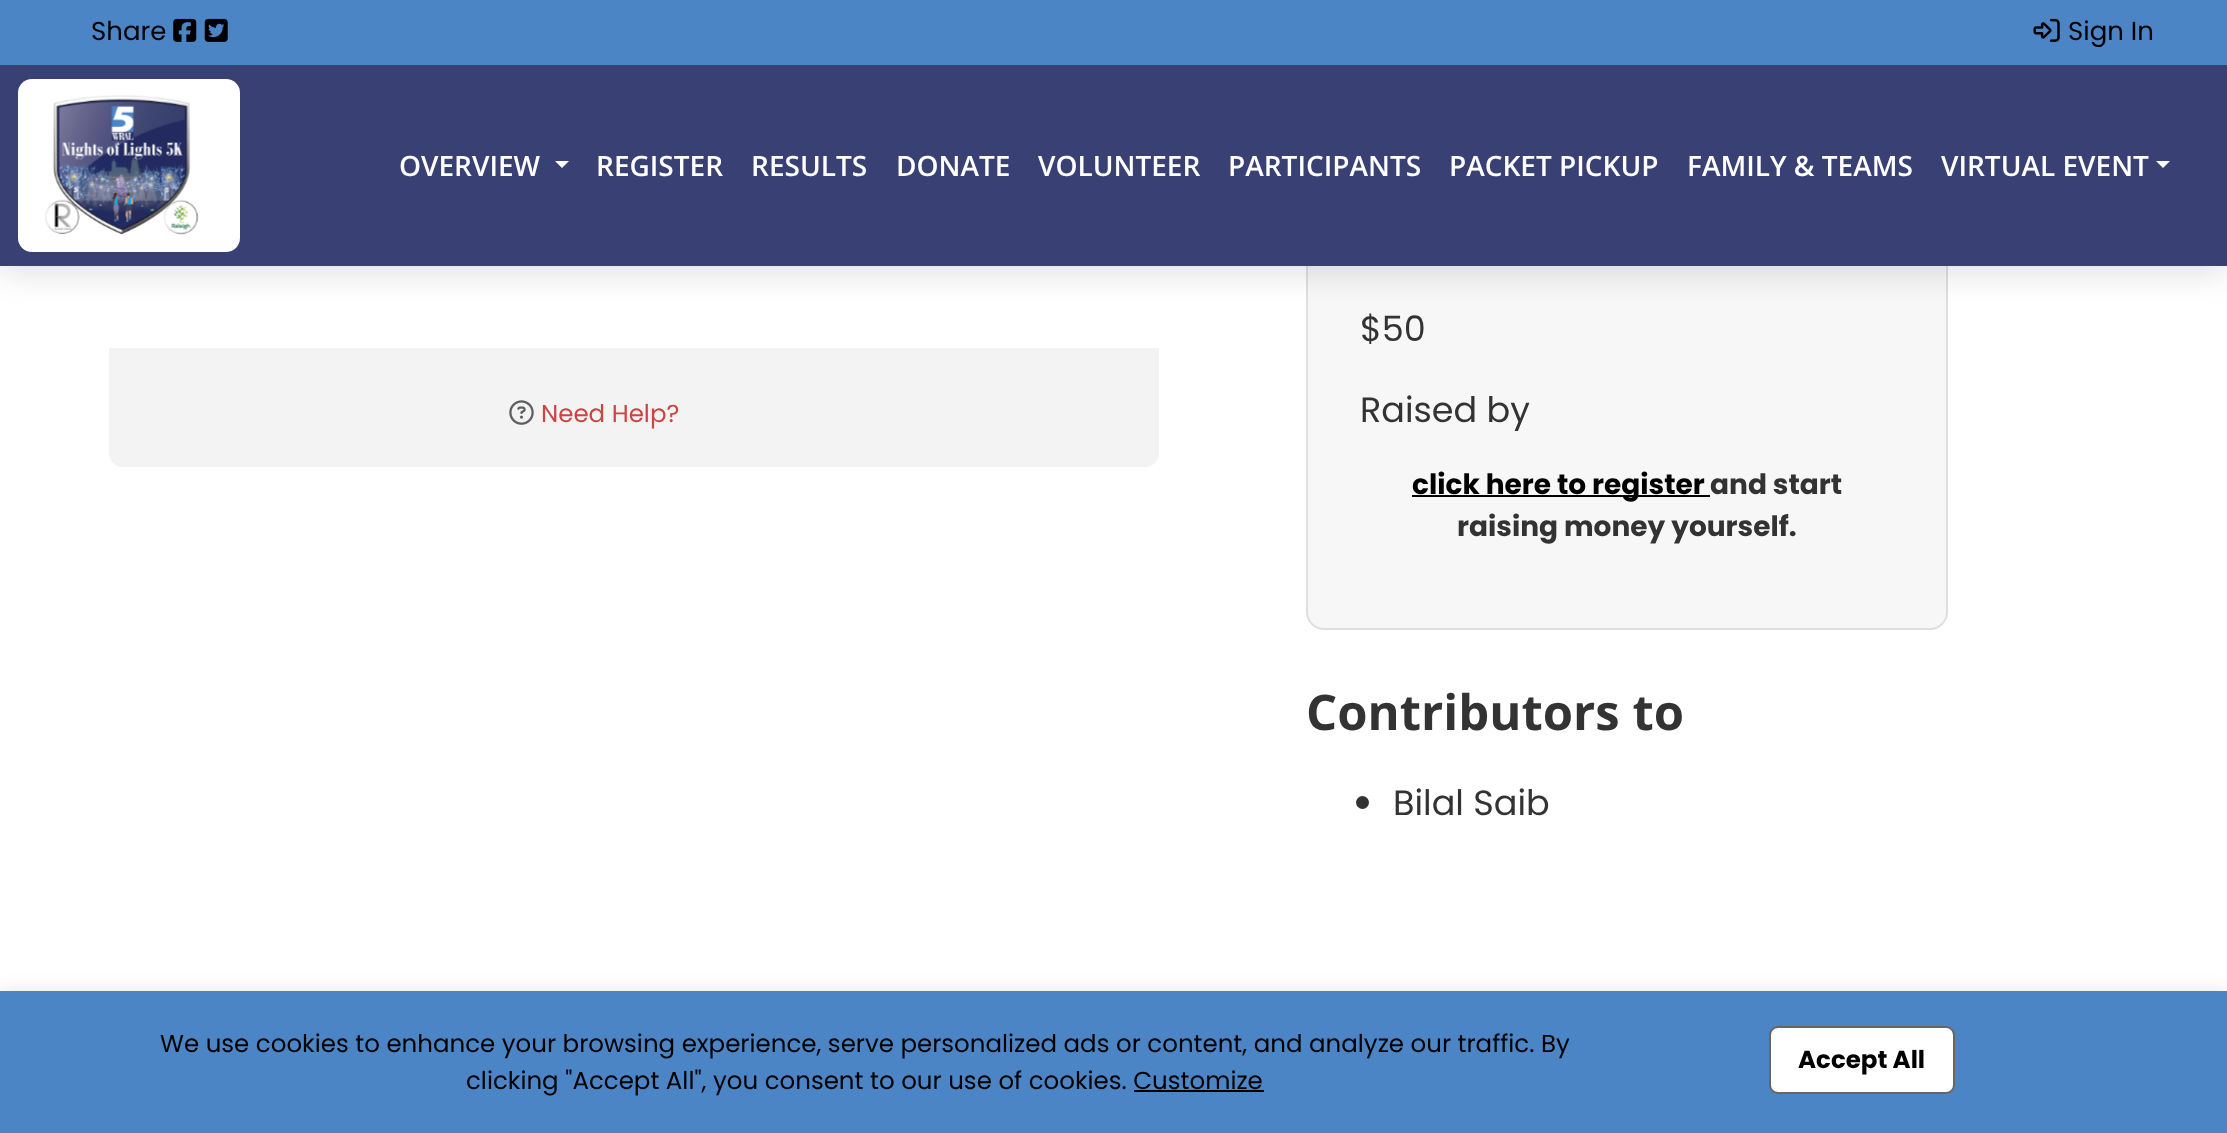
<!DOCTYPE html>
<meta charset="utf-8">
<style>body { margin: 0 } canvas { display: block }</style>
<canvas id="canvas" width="2227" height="1133"></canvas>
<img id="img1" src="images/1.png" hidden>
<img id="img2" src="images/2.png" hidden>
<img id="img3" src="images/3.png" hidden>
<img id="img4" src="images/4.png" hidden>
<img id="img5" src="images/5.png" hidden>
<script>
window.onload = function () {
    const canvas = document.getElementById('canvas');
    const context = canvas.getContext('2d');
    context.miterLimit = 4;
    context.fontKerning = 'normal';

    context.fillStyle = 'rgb(255, 255, 255)';
    context.fillRect(0, 0, 2227, 1133);
    context.fillStyle = 'rgb(247, 247, 247)';
    context.beginPath();
    context.roundRect(1307, 250, 640, 379, 17);
    context.fill();
    context.strokeStyle = 'rgb(223, 223, 223)';
    context.lineWidth = 2;
    context.stroke();
    context.fillStyle = 'rgba(0, 0, 0, 0.12)';
    context.filter = 'blur(16px)';
    context.beginPath();
    context.rect(0, 7, 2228, 266);
    context.fill();
    context.filter = 'none';
    context.fillStyle = 'rgb(75, 133, 197)';
    context.fillRect(0, 0, 2227, 65);
    context.drawImage(document.getElementById('img1'), 173, 18, 24, 24);
    context.drawImage(document.getElementById('img2'), 204, 18, 24, 24);
    context.drawImage(document.getElementById('img3'), 2033, 18, 27, 24);
    context.fillStyle = 'rgb(57, 64, 115)';
    context.fillRect(0, 65, 2227, 201);
    context.fillStyle = 'rgb(255, 255, 255)';
    context.beginPath();
    context.roundRect(18, 79, 222, 173, 14);
    context.fill();
    context.drawImage(document.getElementById('img4'), 45, 95, 154, 140);
    context.beginPath();
    context.moveTo(555, 161);
    context.lineTo(569, 161);
    context.lineTo(562, 168);
    context.closePath();
    context.fill();
    context.beginPath();
    context.moveTo(2156, 161);
    context.lineTo(2170, 161);
    context.lineTo(2163, 168);
    context.closePath();
    context.fill();
    context.fillStyle = 'rgb(243, 243, 243)';
    context.beginPath();
    context.roundRect(109, 348, 1050, 119, [0, 0, 14, 14]);
    context.fill();
    context.drawImage(document.getElementById('img5'), 509, 400, 25, 25);
    context.fillStyle = 'rgb(0, 0, 0)';
    context.fillRect(1412, 495, 298, 2);
    context.fillStyle = 'rgb(51, 51, 51)';
    context.beginPath();
    context.arc(1362.5, 802.5, 6.5, 0, 2 * Math.PI);
    context.fill();
    context.fillStyle = 'rgba(0, 0, 0, 0.1)';
    context.filter = 'blur(9px)';
    context.beginPath();
    context.rect(0, 991, 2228, 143);
    context.fill();
    context.filter = 'none';
    context.fillStyle = 'rgb(75, 133, 197)';
    context.fillRect(0, 991, 2227, 142);
    context.fillStyle = 'rgb(0, 0, 0)';
    context.fillRect(1134, 1090, 130, 2);
    context.fillStyle = 'rgb(255, 255, 255)';
    context.beginPath();
    context.roundRect(1770, 1027, 184, 66, 8);
    context.fill();
    context.strokeStyle = 'rgb(102, 102, 102)';
    context.stroke();
    context.font = '26px Poppins';
    context.fillStyle = 'rgb(0, 0, 0)';
    context.fillText('Share', 91, 40);
    context.fillText('Sign In', 2068, 40);
    context.font = '600 28px Open Sans';
    context.fillStyle = 'rgb(255, 255, 255)';
    context.fillText('OVERVIEW', 399, 176);
    context.fillText('REGISTER', 596, 176);
    context.fillText('RESULTS', 751, 176);
    context.fillText('DONATE', 896, 176);
    context.fillText('VOLUNTEER', 1038, 176);
    context.fillText('PARTICIPANTS', 1228, 176);
    context.fillText('PACKET PICKUP', 1449, 176);
    context.fillText('FAMILY & TEAMS', 1687, 176);
    context.fillText('VIRTUAL EVENT', 1941, 176);
    context.font = '24.5px Poppins';
    context.fillStyle = 'rgb(204, 68, 68)';
    context.fillText('Need Help?', 541, 422);
    context.font = '35px Poppins';
    context.fillStyle = 'rgb(51, 51, 51)';
    context.fillText('$50', 1360, 341);
    context.fillText('Raised by', 1360, 422);
    context.font = 'bold 28px Poppins';
    context.fillStyle = 'rgb(0, 0, 0)';
    context.fillText('click here to register', 1412, 494);
    context.fillStyle = 'rgb(51, 51, 51)';
    context.fillText('and start', 1710, 494);
    context.fillText('raising money yourself.', 1457, 536);
    context.font = 'bold 49px Open Sans';
    context.fillText('Contributors to', 1306, 730);
    context.font = '35px Poppins';
    context.fillText('Bilal Saib', 1393, 815);
    context.font = '24.5px Poppins';
    context.fillStyle = 'rgb(0, 0, 0)';
    context.fillText('We use cookies to enhance your browsing experience, serve personalized ads or content, and analyze our traffic. By', 160, 1052);
    context.fillText('clicking "Accept All", you consent to our use of cookies. Customize', 466, 1089);
    context.font = 'bold 24.5px Poppins';
    context.fillText('Accept All', 1798, 1068);
};
</script>
